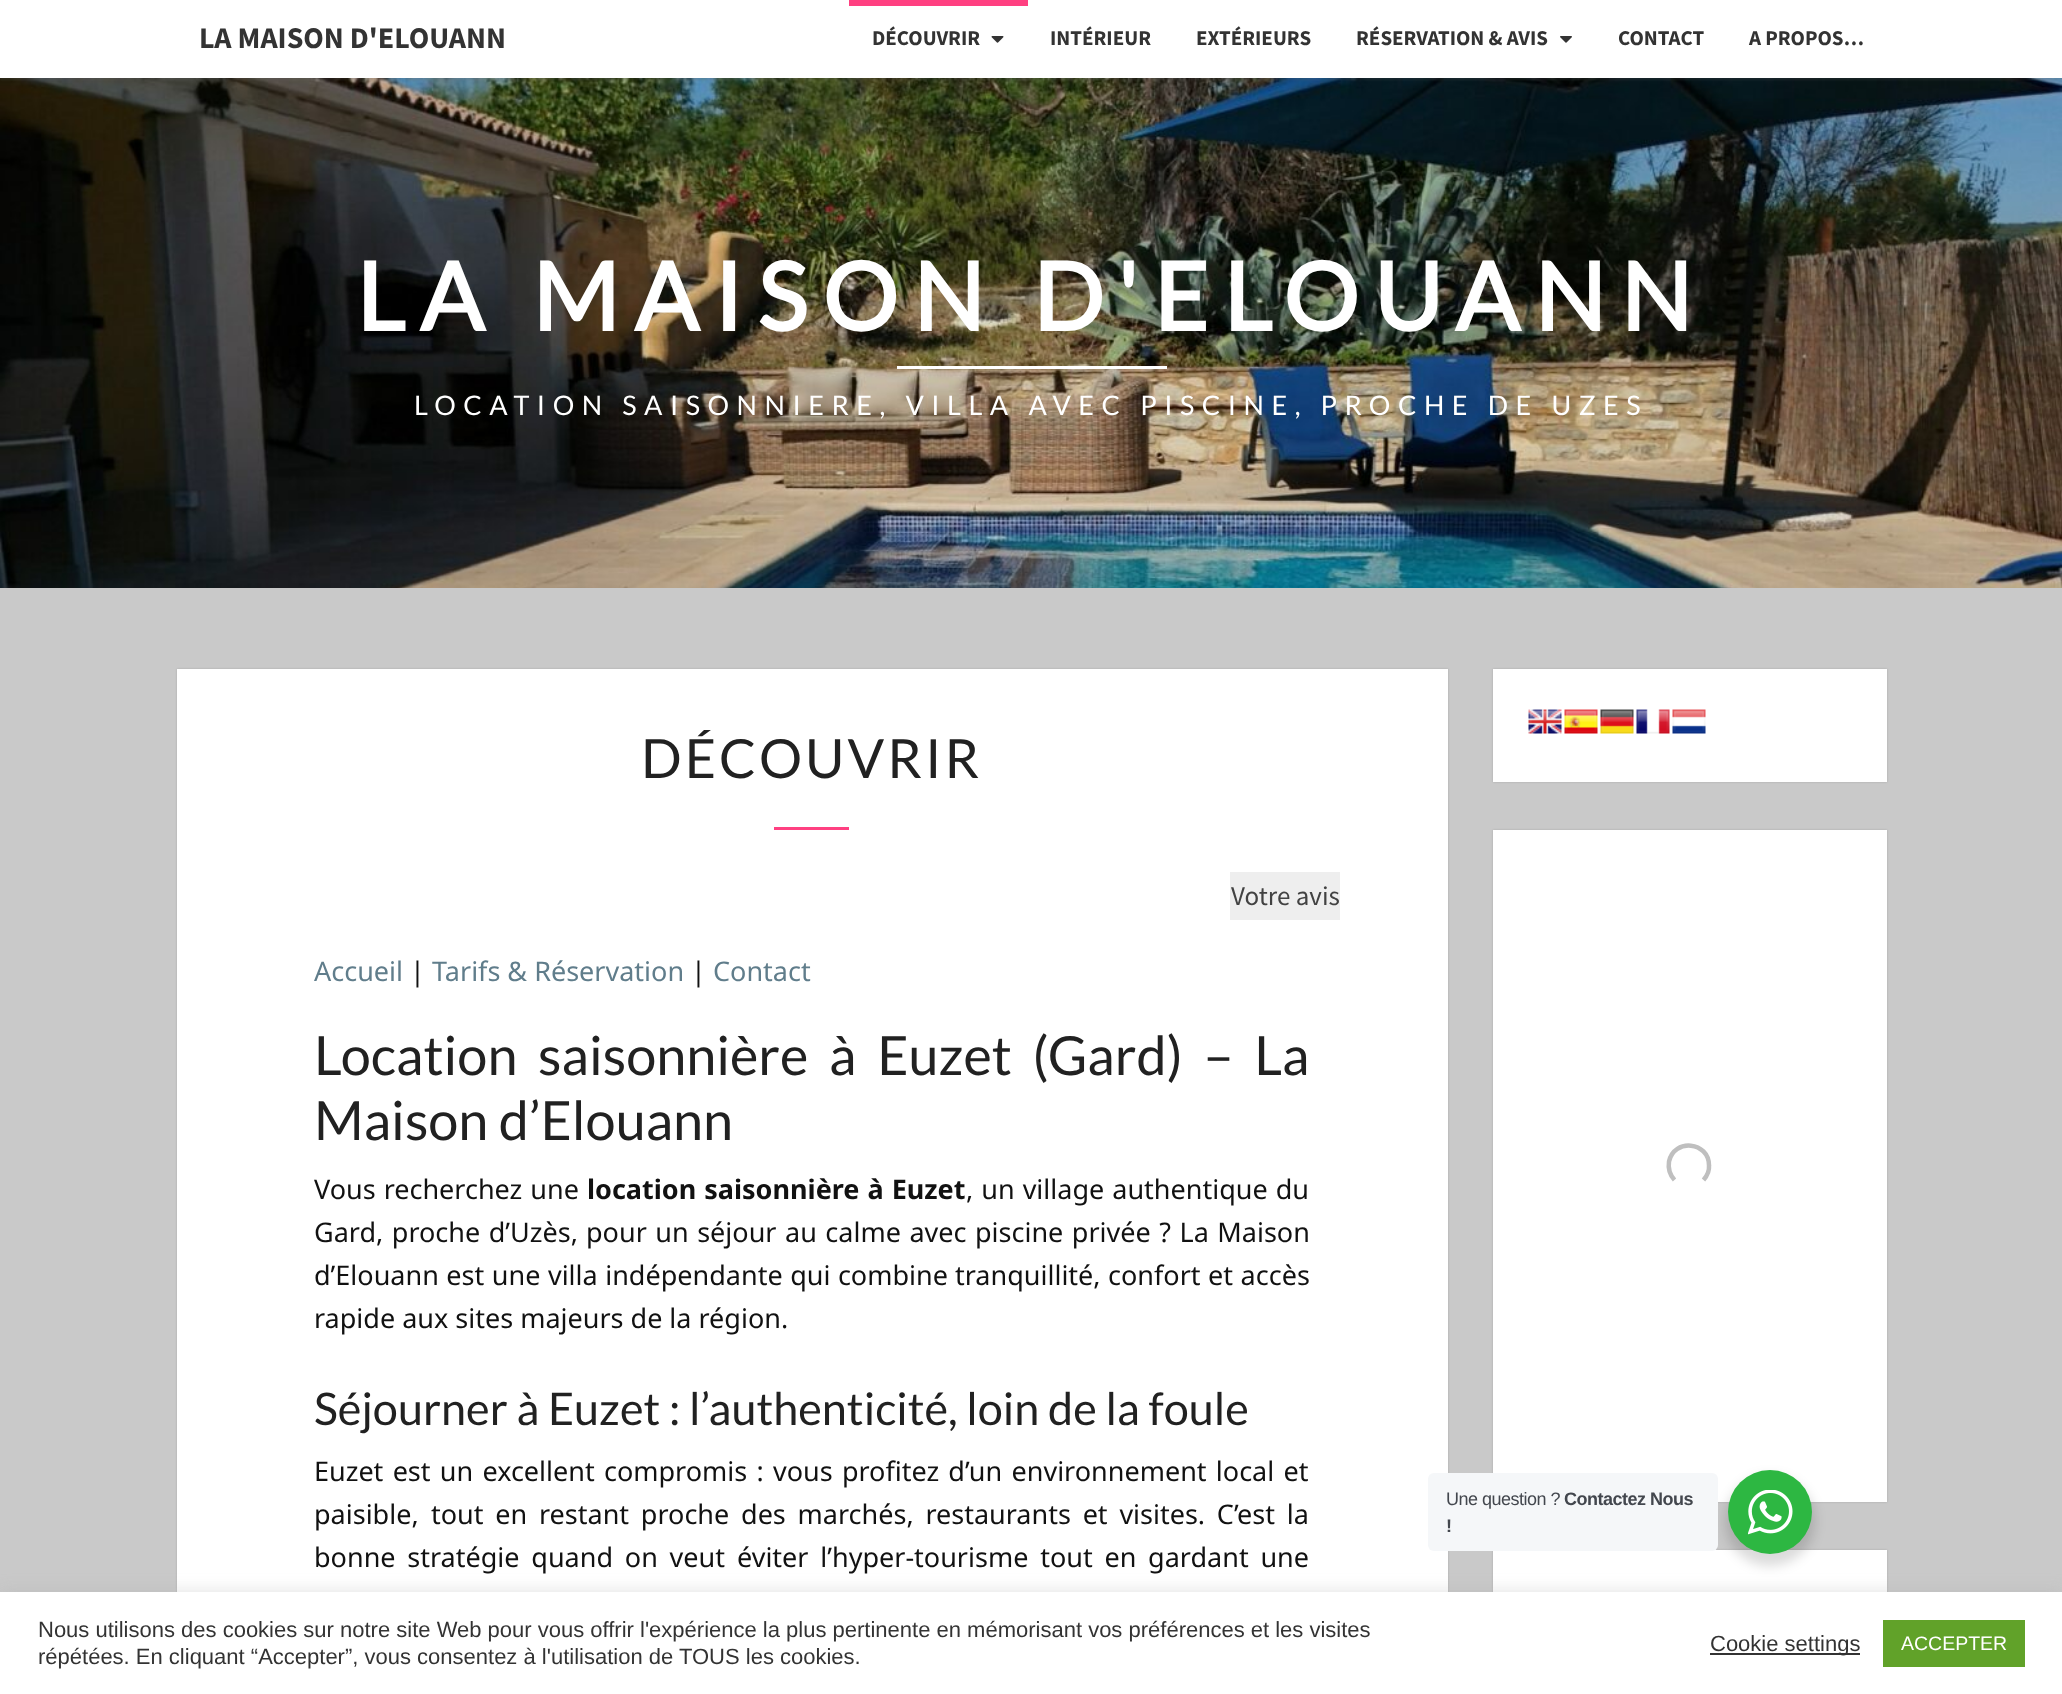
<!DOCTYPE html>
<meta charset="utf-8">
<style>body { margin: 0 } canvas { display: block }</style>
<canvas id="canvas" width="2062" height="1694"></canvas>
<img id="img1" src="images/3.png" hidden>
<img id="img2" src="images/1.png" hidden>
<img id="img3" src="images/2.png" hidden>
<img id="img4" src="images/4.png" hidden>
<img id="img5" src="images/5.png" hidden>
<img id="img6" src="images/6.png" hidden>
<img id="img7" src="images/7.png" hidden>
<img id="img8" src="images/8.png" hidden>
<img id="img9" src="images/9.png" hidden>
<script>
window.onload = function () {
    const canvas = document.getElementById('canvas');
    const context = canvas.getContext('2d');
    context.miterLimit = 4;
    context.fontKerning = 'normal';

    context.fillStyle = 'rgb(201, 201, 201)';
    context.fillRect(0, 0, 2062, 1694);
    context.drawImage(document.getElementById('img1'), 0, 78, 2062, 510);
    context.fillStyle = 'rgba(100, 100, 100, 0.2)';
    context.filter = 'blur(1px)';
    context.beginPath();
    context.rect(0, 2, 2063, 78);
    context.fill();
    context.filter = 'none';
    context.fillStyle = 'rgb(255, 255, 255)';
    context.fillRect(0, 0, 2062, 78);
    context.fillStyle = 'rgb(255, 64, 129)';
    context.fillRect(849, 0, 179, 6);
    context.drawImage(document.getElementById('img2'), 991, 36, 13, 7);
    context.drawImage(document.getElementById('img3'), 1560, 36, 12, 7);
    context.fillStyle = 'rgb(255, 255, 255)';
    context.fillRect(897, 366, 270, 3);
    context.fillStyle = 'rgba(0, 0, 0, 0.15)';
    context.filter = 'blur(1px)';
    context.beginPath();
    context.rect(177, 669, 1271, 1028);
    context.fill();
    context.filter = 'none';
    context.fillStyle = 'rgb(255, 255, 255)';
    context.fillRect(177, 669, 1271, 923);
    context.fillStyle = 'rgb(255, 64, 129)';
    context.fillRect(774, 827, 75, 3);
    context.fillStyle = 'rgb(238, 238, 238)';
    context.fillRect(1230, 872, 110, 48);
    context.fillStyle = 'rgba(0, 0, 0, 0.15)';
    context.filter = 'blur(1px)';
    context.beginPath();
    context.rect(1493, 669, 394, 113);
    context.fill();
    context.filter = 'none';
    context.fillStyle = 'rgb(255, 255, 255)';
    context.fillRect(1493, 669, 394, 113);
    context.drawImage(document.getElementById('img4'), 1528, 709, 34, 25);
    context.drawImage(document.getElementById('img5'), 1564, 709, 34, 25);
    context.drawImage(document.getElementById('img6'), 1600, 709, 34, 25);
    context.drawImage(document.getElementById('img7'), 1636, 709, 34, 25);
    context.drawImage(document.getElementById('img8'), 1672, 709, 34, 25);
    context.fillStyle = 'rgba(0, 0, 0, 0.15)';
    context.filter = 'blur(1px)';
    context.beginPath();
    context.rect(1493, 830, 394, 672);
    context.fill();
    context.filter = 'none';
    context.fillStyle = 'rgb(255, 255, 255)';
    context.fillRect(1493, 830, 394, 672);
    context.beginPath();
    context.moveTo(1674.5, 1180);
    context.bezierCurveTo(1670, 1175, 1668, 1168, 1669, 1161.5);
    context.bezierCurveTo(1674, 1138, 1709, 1141.5, 1709, 1165.5);
    context.bezierCurveTo(1709.5, 1171, 1707, 1176, 1703.5, 1180);
    context.strokeStyle = 'rgb(191, 191, 191)';
    context.lineWidth = 4.5;
    context.stroke();
    context.fillStyle = 'rgba(0, 0, 0, 0.15)';
    context.filter = 'blur(1px)';
    context.beginPath();
    context.rect(1493, 1550, 394, 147);
    context.fill();
    context.filter = 'none';
    context.fillStyle = 'rgb(255, 255, 255)';
    context.fillRect(1493, 1550, 394, 42);
    context.fillStyle = 'rgba(0, 0, 0, 0.14)';
    context.filter = 'blur(6px)';
    context.beginPath();
    context.roundRect(1725, 1476, 90, 90, 45);
    context.fill();
    context.filter = 'none';
    context.fillStyle = 'rgb(245, 247, 249)';
    context.beginPath();
    context.roundRect(1428, 1473, 290, 78, 6);
    context.fill();
    context.fillStyle = 'rgb(45, 183, 66)';
    context.beginPath();
    context.arc(1770, 1512, 42, 0, 2 * Math.PI);
    context.fill();
    context.drawImage(document.getElementById('img9'), 1748, 1490, 45, 45);
    context.fillStyle = 'rgba(172, 171, 171, 0.3)';
    context.filter = 'blur(7.5px)';
    context.beginPath();
    context.rect(0, 1590, 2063, 104);
    context.fill();
    context.filter = 'none';
    context.fillStyle = 'rgb(255, 255, 255)';
    context.fillRect(0, 1592, 2062, 102);
    context.fillStyle = 'rgb(51, 51, 51)';
    context.fillRect(1710, 1653, 150, 2);
    context.fillStyle = 'rgb(97, 162, 41)';
    context.fillRect(1883, 1620, 142, 47);
    context.font = 'bold 30px Source Sans Pro';
    context.fillStyle = 'rgb(51, 51, 51)';
    context.fillText('LA MAISON D\'ELOUANN', 199, 48);
    context.font = 'bold 21px Source Sans Pro';
    context.fillText('DÉCOUVRIR', 872, 45);
    context.fillText('INTÉRIEUR', 1050, 45);
    context.fillText('EXTÉRIEURS', 1196, 45);
    context.fillText('RÉSERVATION & AVIS', 1356, 45);
    context.fillText('CONTACT', 1618, 45);
    context.fillText('A PROPOS…', 1749, 45);
    context.letterSpacing = '15px';
    context.font = 'bold 94.5px Lato';
    context.fillStyle = 'rgb(255, 255, 255)';
    context.fillText('LA MAISON D\'ELOUANN', 356, 331);
    context.letterSpacing = '7.5px';
    context.font = '27px Lato';
    context.fillText('LOCATION SAISONNIERE, VILLA AVEC PISCINE, PROCHE DE UZES', 414, 415);
    context.letterSpacing = '3px';
    context.font = '54px Lato';
    context.fillStyle = 'rgb(33, 33, 33)';
    context.fillText('DÉCOUVRIR', 641, 778);
    context.letterSpacing = '0px';
    context.font = '27px Source Sans Pro';
    context.fillStyle = 'rgb(66, 66, 66)';
    context.fillText('Votre avis', 1231, 905);
    context.font = '27px Noto Sans';
    context.fillStyle = 'rgb(96, 125, 139)';
    context.fillText('Accueil', 314, 981);
    context.fillStyle = 'rgb(17, 17, 17)';
    context.fillText('|', 410, 981);
    context.fillStyle = 'rgb(96, 125, 139)';
    context.fillText('Tarifs & Réservation', 432, 981);
    context.fillStyle = 'rgb(17, 17, 17)';
    context.fillText('|', 691, 981);
    context.fillStyle = 'rgb(96, 125, 139)';
    context.fillText('Contact', 713, 981);
    context.wordSpacing = '10.25px';
    context.font = '54px Lato';
    context.fillStyle = 'rgb(33, 33, 33)';
    context.fillText('Location saisonnière à Euzet (Gard) – La', 314, 1075);
    context.wordSpacing = '0px';
    context.fillText('Maison d’Elouann', 314, 1140);
    context.wordSpacing = '1px';
    context.font = '27px Noto Sans';
    context.fillStyle = 'rgb(17, 17, 17)';
    context.fillText('Vous recherchez une', 314, 1199);
    context.font = 'bold 27px Noto Sans';
    context.fillText('location saisonnière à Euzet', 587, 1199);
    context.font = '27px Noto Sans';
    context.fillText(', un village authentique du', 966, 1199);
    context.wordSpacing = '1.5px';
    context.fillText('Gard, proche d’Uzès,', 314, 1242);
    context.fillText('pour un séjour au calme avec piscine privée ? La Maison', 586, 1242);
    context.wordSpacing = '0.5px';
    context.fillText('d’Elouann est une villa indépendante qui combine', 314, 1285);
    context.fillText('tranquillité, confort et accès', 955, 1285);
    context.wordSpacing = '0px';
    context.fillText('rapide aux sites majeurs de la région.', 314, 1328);
    context.font = '45px Lato';
    context.fillStyle = 'rgb(33, 33, 33)';
    context.fillText('Séjourner à Euzet : l’authenticité, loin de la foule', 314, 1425);
    context.wordSpacing = '2.25px';
    context.font = '27px Noto Sans';
    context.fillStyle = 'rgb(17, 17, 17)';
    context.fillText('Euzet est un excellent compromis : vous profitez d’un environnement local et', 314, 1481);
    context.wordSpacing = '0px';
    context.fillText('paisible,', 314, 1524);
    context.wordSpacing = '4.75px';
    context.fillText('tout en restant proche des marchés, restaurants et visites. C’est la', 431, 1524);
    context.fillText('bonne stratégie quand on veut', 314, 1567);
    context.fillText('éviter l’hyper-tourisme tout en gardant une', 737, 1567);
    context.letterSpacing = '-0.5px';
    context.wordSpacing = '0px';
    context.font = '18px Liberation Sans';
    context.fillStyle = 'rgb(67, 71, 78)';
    context.fillText('Une question ?', 1446, 1505);
    context.font = 'bold 18px Liberation Sans';
    context.fillText('Contactez Nous', 1564, 1505);
    context.fillText('!', 1446, 1532);
    context.letterSpacing = '0px';
    context.font = '22px Liberation Sans';
    context.fillStyle = 'rgb(51, 51, 51)';
    context.fillText('Nous utilisons des cookies sur notre site Web pour vous offrir l\'expérience la plus pertinente en mémorisant vos préférences et les visites', 38, 1637);
    context.fillText('répétées. En cliquant “Accepter”, vous consentez à l\'utilisation de TOUS les cookies.', 38, 1664);
    context.fillText('Cookie settings', 1710, 1651);
    context.font = '19.5px Liberation Sans';
    context.fillStyle = 'rgb(255, 255, 255)';
    context.fillText('ACCEPTER', 1901, 1650);
};
</script>
